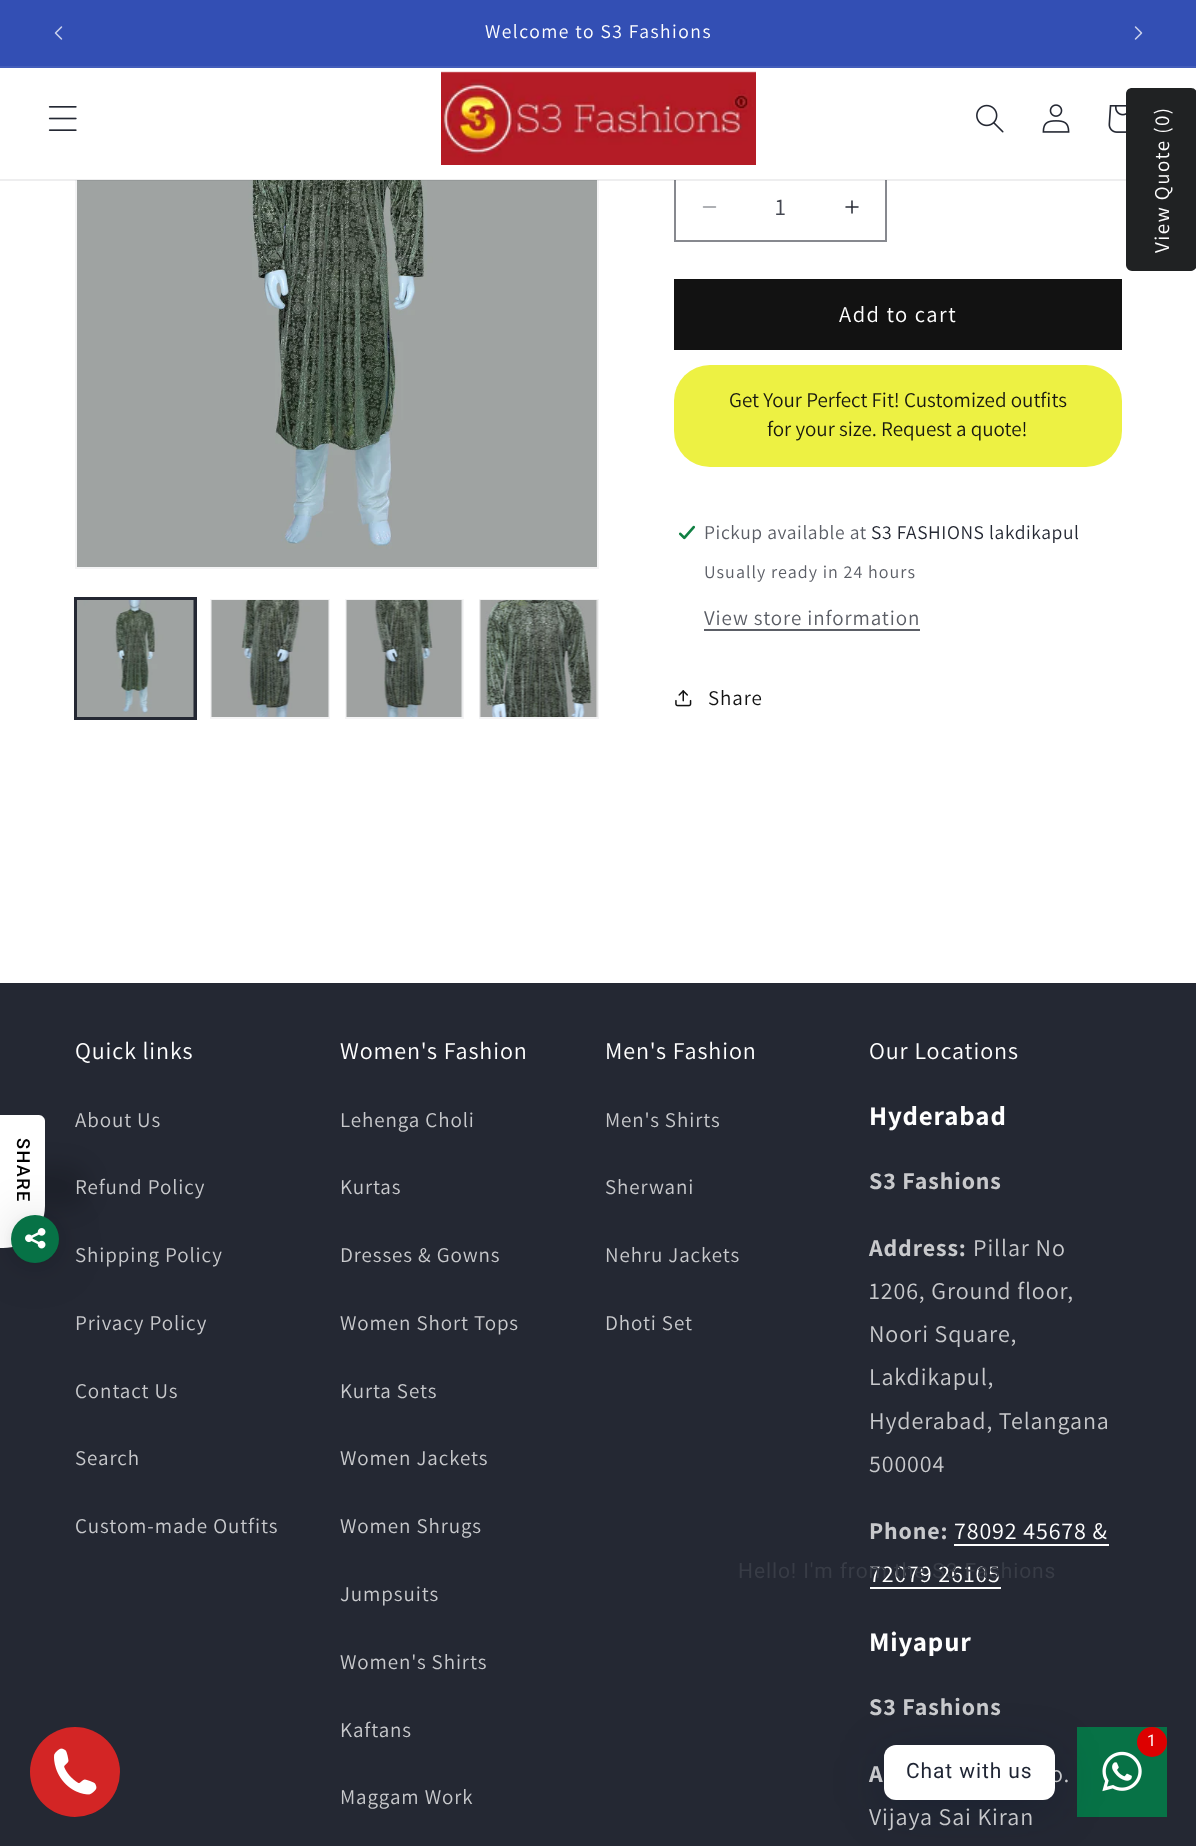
<!DOCTYPE html>
<meta charset="utf-8">
<style>body { margin: 0 } canvas { display: block }</style>
<canvas id="canvas" width="1196" height="1846"></canvas>
<img id="img1" src="images/1.png" hidden>
<img id="img2" src="images/2.png" hidden>
<img id="img3" src="images/13.png" hidden>
<img id="img4" src="images/14.png" hidden>
<img id="img5" src="images/8.png" hidden>
<img id="img6" src="images/3.png" hidden>
<img id="img7" src="images/4.png" hidden>
<img id="img8" src="images/5.png" hidden>
<img id="img9" src="images/6.png" hidden>
<img id="img10" src="images/7.png" hidden>
<img id="img11" src="images/9.png" hidden>
<img id="img12" src="images/10.png" hidden>
<img id="img13" src="images/11.png" hidden>
<img id="img14" src="images/12.png" hidden>
<img id="img15" src="images/15.png" hidden>
<img id="img16" src="images/16.png" hidden>
<img id="img17" src="images/17.png" hidden>
<img id="img18" src="images/18.png" hidden>
<img id="img19" src="images/19.png" hidden>
<script>
window.onload = function () {
    const canvas = document.getElementById('canvas');
    const context = canvas.getContext('2d');
    context.miterLimit = 4;
    context.fontKerning = 'normal';

    context.fillStyle = 'rgb(255, 255, 255)';
    context.fillRect(0, 0, 1196, 1846);
    context.strokeStyle = 'rgb(244, 244, 245)';
    context.lineWidth = 2;
    context.strokeRect(76, 46, 522, 522);
    context.fillStyle = 'rgb(51, 79, 180)';
    context.fillRect(0, 0, 1196, 66);
    context.fillStyle = 'rgb(67, 93, 186)';
    context.fillRect(0, 66, 1196, 2);
    context.drawImage(document.getElementById('img1'), 54, 26, 9, 14);
    context.drawImage(document.getElementById('img2'), 1134, 26, 9, 14);
    context.drawImage(document.getElementById('img3'), 702, 206, 15, 2);
    context.drawImage(document.getElementById('img4'), 845, 200, 14, 14);
    context.strokeStyle = 'rgb(135, 137, 143)';
    context.strokeRect(675, 172, 211, 69);
    context.fillStyle = 'rgb(255, 255, 255)';
    context.fillRect(75, 68, 812, 112);
    context.drawImage(document.getElementById('img5'), 77, 180, 520, 387);
    context.fillStyle = 'rgba(36, 40, 51, 0.08)';
    context.fillRect(0, 179, 1126, 2);
    context.drawImage(document.getElementById('img6'), 48, 106, 29, 25);
    context.drawImage(document.getElementById('img7'), 441, 71, 315, 94);
    context.drawImage(document.getElementById('img8'), 976, 104, 28, 29);
    context.drawImage(document.getElementById('img9'), 1042, 104, 28, 29);
    context.drawImage(document.getElementById('img10'), 1108, 105, 18, 28);
    context.fillStyle = 'rgb(32, 34, 35)';
    context.beginPath();
    context.moveTo(1126, 265);
    context.lineTo(1126, 94);
    context.bezierCurveTo(1126, 90, 1129, 88, 1132, 88);
    context.lineTo(1191, 88);
    context.bezierCurveTo(1194, 88, 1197, 90, 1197, 94);
    context.lineTo(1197, 265);
    context.bezierCurveTo(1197, 268, 1194, 271, 1191, 271);
    context.lineTo(1132, 271);
    context.bezierCurveTo(1129, 271, 1126, 268, 1126, 265);
    context.closePath();
    context.fill();
    context.strokeStyle = 'rgb(36, 40, 51)';
    context.strokeRect(75, 598, 121, 121);
    context.strokeRect(76, 600, 118, 118);
    context.drawImage(document.getElementById('img11'), 77, 600, 117, 117);
    context.strokeStyle = 'rgb(244, 244, 245)';
    context.strokeRect(211, 600, 118, 118);
    context.drawImage(document.getElementById('img12'), 211, 600, 118, 117);
    context.strokeRect(346, 600, 117, 118);
    context.drawImage(document.getElementById('img13'), 346, 600, 117, 117);
    context.strokeRect(480, 600, 118, 118);
    context.drawImage(document.getElementById('img14'), 479, 600, 119, 117);
    context.fillStyle = 'rgb(18, 18, 18)';
    context.fillRect(674, 279, 448, 71);
    context.fillStyle = 'rgb(237, 241, 67)';
    context.beginPath();
    context.roundRect(674, 365, 448, 102, 36);
    context.fill();
    context.drawImage(document.getElementById('img15'), 678, 525, 18, 15);
    context.fillStyle = 'rgb(91, 94, 102)';
    context.fillRect(704, 629, 216, 2);
    context.drawImage(document.getElementById('img16'), 675, 690, 17, 17);
    context.fillStyle = 'rgb(36, 40, 51)';
    context.fillRect(0, 983, 1196, 863);
    context.fillStyle = 'rgb(255, 255, 255)';
    context.fillRect(954, 1544, 155, 2);
    context.fillRect(870, 1587, 131, 2);
    context.fillStyle = 'rgba(0, 0, 0, 0.15)';
    context.filter = 'blur(10.5px)';
    context.beginPath();
    context.roundRect(-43, 1164, 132, 45, 42);
    context.fill();
    context.filter = 'none';
    context.fillStyle = 'rgb(255, 255, 255)';
    context.beginPath();
    context.moveTo(0, 1248);
    context.lineTo(0, 1115);
    context.lineTo(39, 1115);
    context.bezierCurveTo(42, 1115, 45, 1118, 45, 1121);
    context.lineTo(45, 1206);
    context.bezierCurveTo(45, 1229, 26, 1248, 3, 1248);
    context.closePath();
    context.fill();
    context.fillStyle = 'rgba(0, 0, 0, 0.16)';
    context.filter = 'blur(24px)';
    context.beginPath();
    context.roundRect(11, 1218, 48, 48, 24);
    context.fill();
    context.filter = 'none';
    context.fillStyle = 'rgba(0, 0, 0, 0.06)';
    context.filter = 'blur(4.5px)';
    context.beginPath();
    context.roundRect(11, 1217, 48, 48, 24);
    context.fill();
    context.filter = 'none';
    context.fillStyle = 'rgb(7, 114, 70)';
    context.beginPath();
    context.arc(35, 1239, 24, 0, 2 * Math.PI);
    context.fill();
    context.drawImage(document.getElementById('img17'), 25, 1228, 21, 21);
    context.fillRect(1077, 1727, 90, 90);
    context.fillStyle = 'rgba(0, 18, 46, 0.24)';
    context.filter = 'blur(24px)';
    context.beginPath();
    context.roundRect(884, 1754, 171, 55, 12);
    context.fill();
    context.filter = 'none';
    context.drawImage(document.getElementById('img18'), 1102, 1751, 40, 41);
    context.fillStyle = 'rgb(221, 0, 0)';
    context.beginPath();
    context.arc(1152, 1742, 15, 0, 2 * Math.PI);
    context.fill();
    context.fillStyle = 'rgb(211, 37, 37)';
    context.beginPath();
    context.arc(75, 1772, 45, 0, 2 * Math.PI);
    context.fill();
    context.drawImage(document.getElementById('img19'), 54, 1748, 43, 47);
    context.letterSpacing = '1.5px';
    context.font = '19.5px Assistant';
    context.fillStyle = 'rgb(255, 255, 255)';
    context.fillText('Welcome to S3 Fashions', 485, 38);
    context.font = '21px Assistant';
    context.save();
    context.translate(1169, 253);
    context.rotate(-90 * Math.PI / 180);
    context.fillText('View Quote (0)', 0, 0);
    context.restore();
    context.letterSpacing = '0px';
    context.font = '24px Assistant';
    context.fillStyle = 'rgb(69, 72, 82)';
    context.fillText('1', 775, 215);
    context.letterSpacing = '1.5px';
    context.font = '22.5px Assistant';
    context.fillStyle = 'rgb(255, 255, 255)';
    context.fillText('Add to cart', 839, 322);
    context.letterSpacing = '0px';
    context.font = '21px Assistant';
    context.fillStyle = 'rgb(24, 24, 17)';
    context.fillText('Get Your Perfect Fit! Customized outfits', 729, 407);
    context.fillText('for your size. Request a quote!', 767, 436);
    context.letterSpacing = '0.6px';
    context.font = '19.5px Assistant';
    context.fillStyle = 'rgb(91, 94, 102)';
    context.fillText('Pickup available at', 704, 539);
    context.fillStyle = 'rgb(36, 40, 51)';
    context.fillText('S3 FASHIONS lakdikapul', 871, 539);
    context.letterSpacing = '1.05px';
    context.font = '18px Assistant';
    context.fillStyle = 'rgb(91, 94, 102)';
    context.fillText('Usually ready in 24 hours', 704, 578);
    context.letterSpacing = '0.9px';
    context.font = '21px Assistant';
    context.fillText('View store information', 704, 625);
    context.fillStyle = 'rgb(18, 18, 18)';
    context.fillText('Share', 708, 705);
    context.font = '24px Assistant';
    context.fillStyle = 'rgb(255, 255, 255)';
    context.fillText('Quick links', 75, 1059);
    context.font = '21px Assistant';
    context.fillStyle = 'rgb(200, 201, 204)';
    context.fillText('About Us', 75, 1127);
    context.fillText('Refund Policy', 75, 1194);
    context.fillText('Shipping Policy', 75, 1262);
    context.fillText('Privacy Policy', 75, 1330);
    context.fillText('Contact Us', 75, 1398);
    context.fillText('Search', 75, 1465);
    context.fillText('Custom-made Outfits', 75, 1533);
    context.font = '24px Assistant';
    context.fillStyle = 'rgb(255, 255, 255)';
    context.fillText('Women\'s Fashion', 340, 1059);
    context.font = '21px Assistant';
    context.fillStyle = 'rgb(200, 201, 204)';
    context.fillText('Lehenga Choli', 340, 1127);
    context.fillText('Kurtas', 340, 1194);
    context.fillText('Dresses & Gowns', 340, 1262);
    context.fillText('Women Short Tops', 340, 1330);
    context.fillText('Kurta Sets', 340, 1398);
    context.fillText('Women Jackets', 340, 1465);
    context.fillText('Women Shrugs', 340, 1533);
    context.fillText('Jumpsuits', 340, 1601);
    context.fillText('Women\'s Shirts', 340, 1669);
    context.fillText('Kaftans', 340, 1737);
    context.fillText('Maggam Work', 340, 1804);
    context.font = '24px Assistant';
    context.fillStyle = 'rgb(255, 255, 255)';
    context.fillText('Men\'s Fashion', 605, 1059);
    context.font = '21px Assistant';
    context.fillStyle = 'rgb(200, 201, 204)';
    context.fillText('Men\'s Shirts', 605, 1127);
    context.fillText('Sherwani', 605, 1194);
    context.fillText('Nehru Jackets', 605, 1262);
    context.fillText('Dhoti Set', 605, 1330);
    context.font = '24px Assistant';
    context.fillStyle = 'rgb(255, 255, 255)';
    context.fillText('Our Locations', 869, 1059);
    context.font = 'bold 27px Assistant';
    context.fillText('Hyderabad', 869, 1125);
    context.font = 'bold 24px Assistant';
    context.fillStyle = 'rgb(200, 201, 204)';
    context.fillText('S3 Fashions', 869, 1189);
    context.fillText('Address:', 869, 1256);
    context.font = '24px Assistant';
    context.fillText('Pillar No', 973, 1256);
    context.fillText('1206, Ground floor,', 869, 1299);
    context.fillText('Noori Square,', 869, 1342);
    context.fillText('Lakdikapul,', 869, 1385);
    context.fillText('Hyderabad, Telangana', 869, 1429);
    context.fillText('500004', 869, 1472);
    context.font = 'bold 24px Assistant';
    context.fillText('Phone:', 869, 1539);
    context.font = '24px Assistant';
    context.fillStyle = 'rgb(255, 255, 255)';
    context.fillText('78092 45678 &', 954, 1539);
    context.fillText('72079 26105', 869, 1582);
    context.font = 'bold 27px Assistant';
    context.fillText('Miyapur', 869, 1651);
    context.font = 'bold 24px Assistant';
    context.fillStyle = 'rgb(200, 201, 204)';
    context.fillText('S3 Fashions', 869, 1715);
    context.fillText('A', 869, 1782);
    context.font = '24px Assistant';
    context.fillText('o.', 1050, 1782);
    context.fillText('Vijaya Sai Kiran', 869, 1825);
    context.letterSpacing = '1.5px';
    context.font = '500 18px Roboto';
    context.fillStyle = 'rgb(0, 0, 0)';
    context.save();
    context.translate(17, 1138);
    context.rotate(90 * Math.PI / 180);
    context.fillText('SHARE', 0, 0);
    context.restore();
    context.letterSpacing = '0.9px';
    context.font = '21px Roboto';
    context.fillStyle = 'rgb(56, 60, 70)';
    context.fillText('Hello! I\'m from the S3 Fashions', 738, 1578);
    context.font = '16px Roboto';
    context.fillStyle = 'rgb(255, 255, 255)';
    context.fillText('1', 1147, 1746);
    context.beginPath();
    context.roundRect(884, 1745, 171, 55, 12);
    context.fill();
    context.font = '21px Roboto';
    context.fillStyle = 'rgb(30, 36, 51)';
    context.fillText('Chat with us', 906, 1778);
};
</script>
